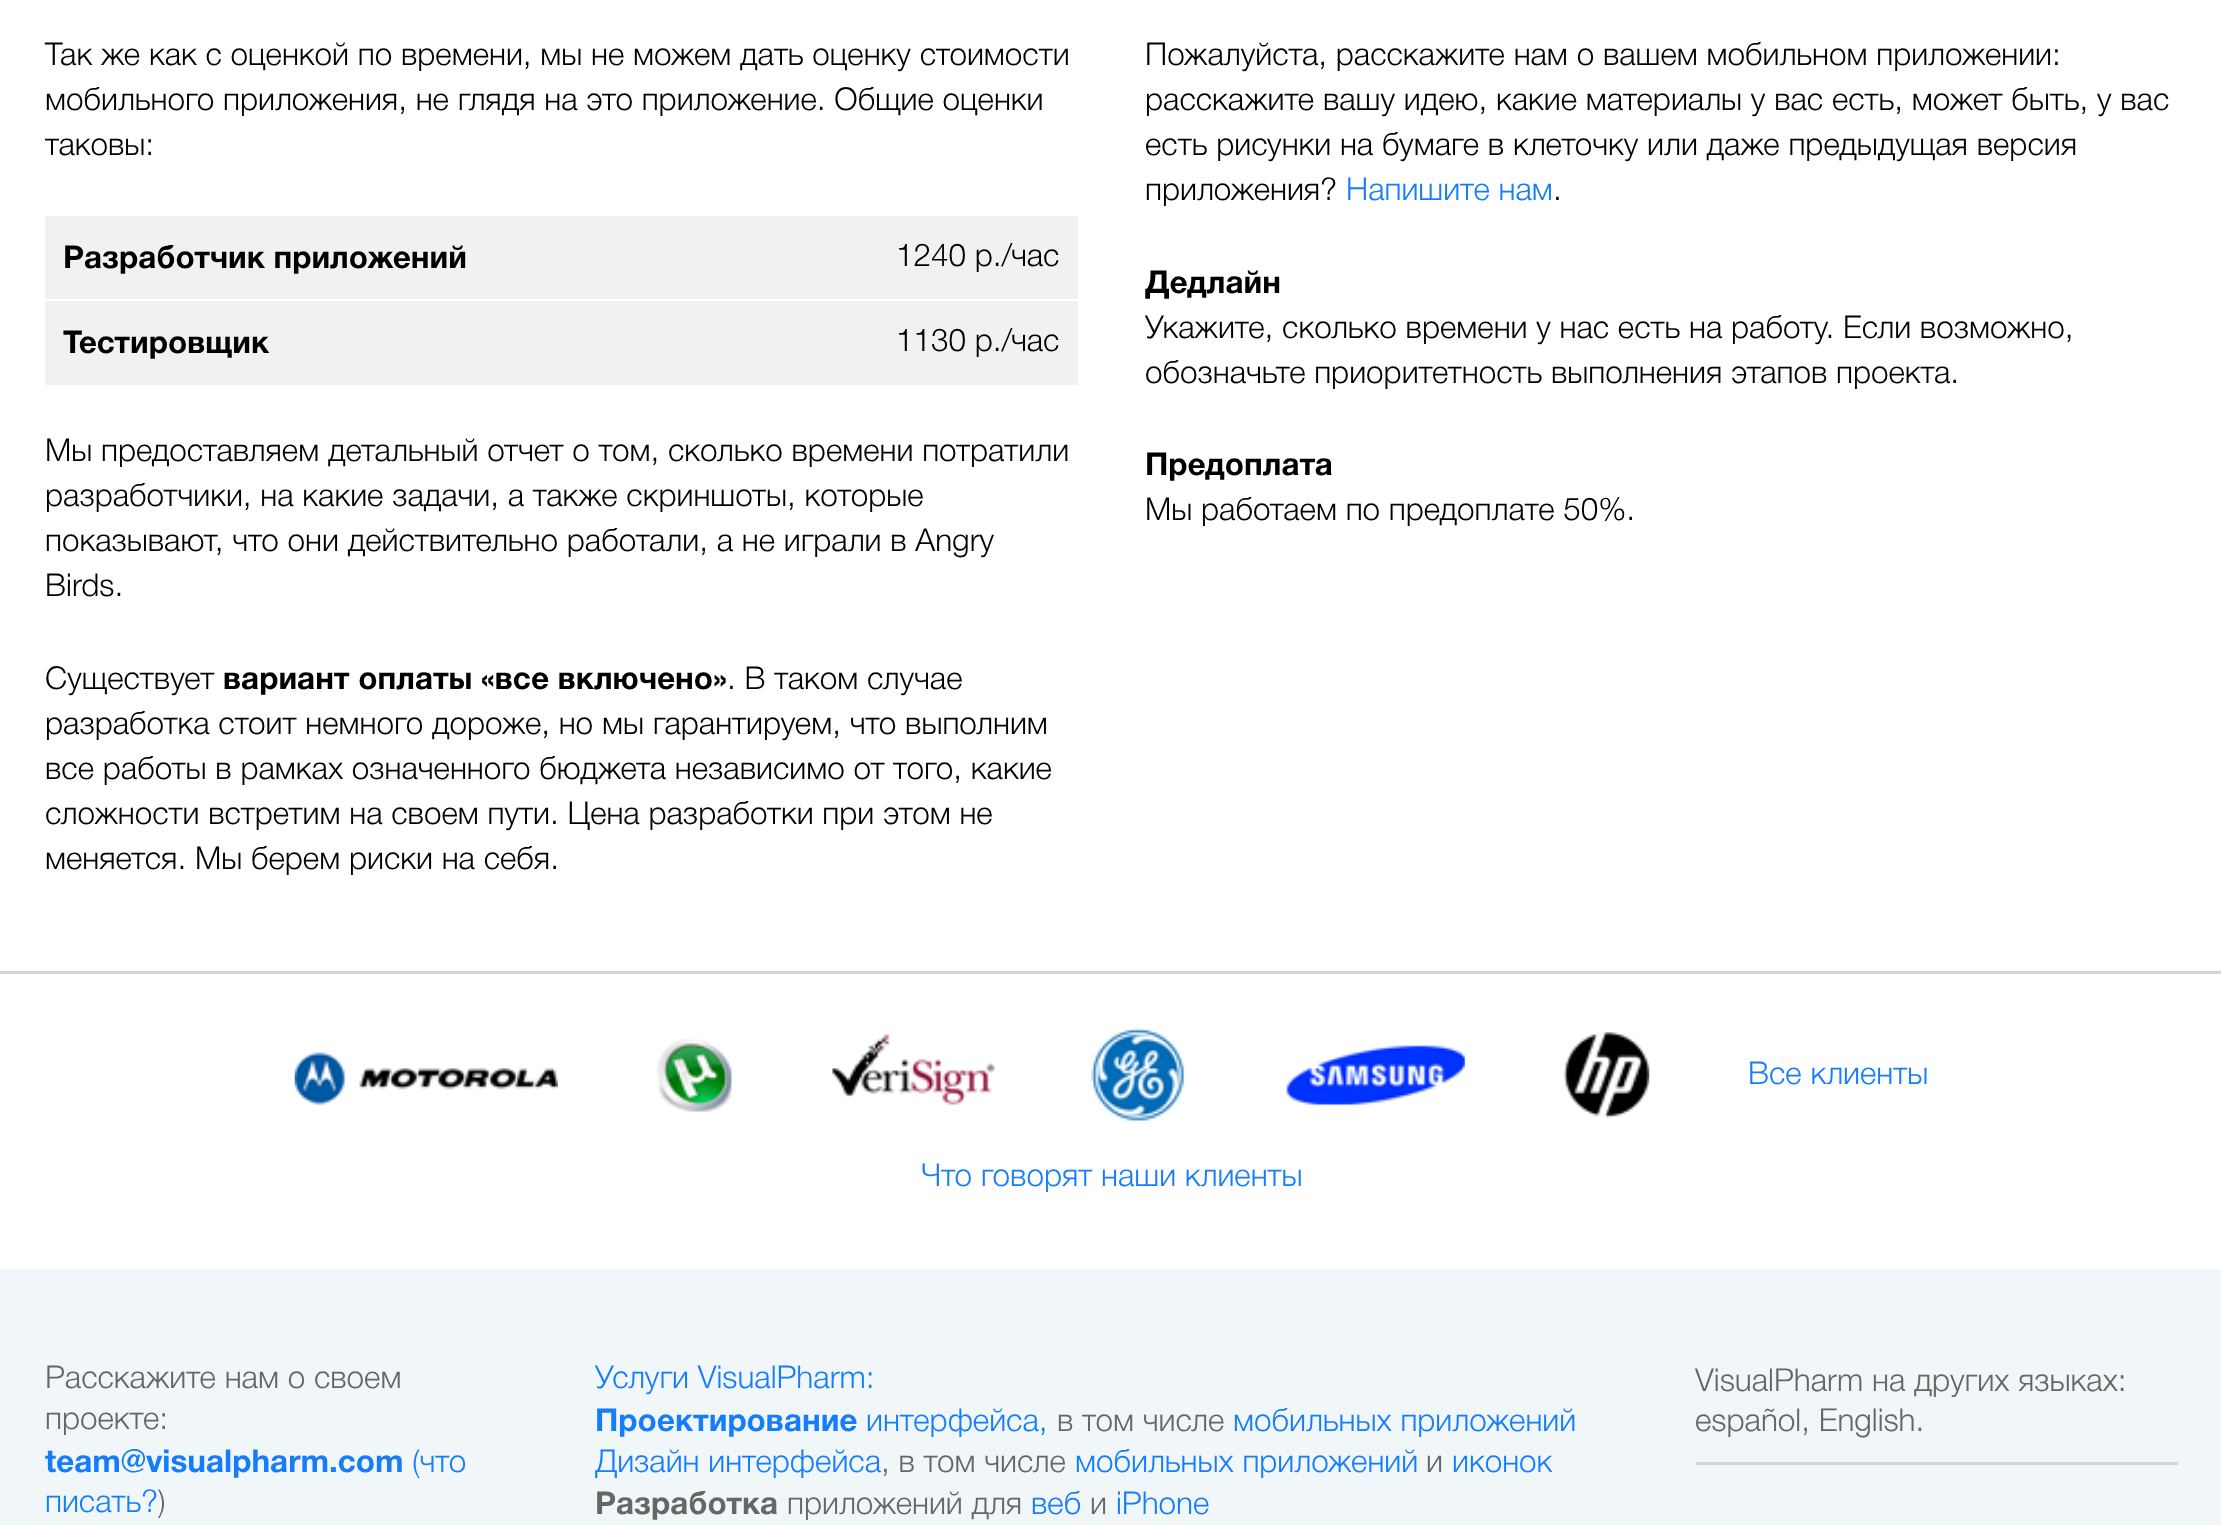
<!DOCTYPE html>
<meta charset="utf-8">
<style>body { margin: 0 } canvas { display: block }</style>
<canvas id="canvas" width="2221" height="1525"></canvas>
<img id="img1" src="images/1.png" hidden>
<img id="img2" src="images/2.png" hidden>
<img id="img3" src="images/3.png" hidden>
<img id="img4" src="images/4.png" hidden>
<img id="img5" src="images/5.png" hidden>
<img id="img6" src="images/6.png" hidden>
<script>
window.onload = function () {
    const canvas = document.getElementById('canvas');
    const context = canvas.getContext('2d');
    context.miterLimit = 4;
    context.fontKerning = 'normal';

    context.fillStyle = 'rgb(241, 246, 248)';
    context.fillRect(0, 0, 2221, 1525);
    context.fillStyle = 'rgb(255, 255, 255)';
    context.fillRect(0, 0, 2221, 1269);
    context.fillStyle = 'rgb(208, 214, 217)';
    context.fillRect(0, 971, 2221, 3);
    context.fillStyle = 'rgb(240, 241, 243)';
    context.fillRect(45, 216, 1033, 169);
    context.fillStyle = 'rgb(255, 255, 255)';
    context.fillRect(45, 299, 1035, 2);
    context.drawImage(document.getElementById('img1'), 294, 1052, 264, 54);
    context.drawImage(document.getElementById('img2'), 657, 1039, 75, 73);
    context.drawImage(document.getElementById('img3'), 832, 1034, 163, 72);
    context.drawImage(document.getElementById('img4'), 1091, 1027, 94, 94);
    context.drawImage(document.getElementById('img5'), 1286, 1045, 179, 61);
    context.drawImage(document.getElementById('img6'), 1563, 1032, 87, 87);
    context.fillStyle = 'rgb(208, 214, 217)';
    context.fillRect(1696, 1462, 482, 3);
    context.font = '300 31.5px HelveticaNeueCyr';
    context.fillStyle = 'rgb(0, 0, 0)';
    context.fillText('Так же как с оценкой по времени, мы не можем дать оценку стоимости', 45, 65);
    context.fillText('мобильного приложения, не глядя на это приложение. Общие оценки', 45, 110);
    context.fillText('таковы:', 45, 155);
    context.font = 'bold 31.5px HelveticaNeueCyr';
    context.fillText('Разработчик приложений', 63, 268);
    context.font = '300 31.5px HelveticaNeueCyr';
    context.fillText('1240 р./час', 896, 266);
    context.font = 'bold 31.5px HelveticaNeueCyr';
    context.fillText('Тестировщик', 63, 353);
    context.font = '300 31.5px HelveticaNeueCyr';
    context.fillText('1130 р./час', 896, 351);
    context.fillText('Мы предоставляем детальный отчет о том, сколько времени потратили', 45, 461);
    context.fillText('разработчики, на какие задачи, а также скриншоты, которые', 45, 506);
    context.fillText('показывают, что они действительно работали, а не играли в Angry', 45, 551);
    context.fillText('Birds.', 45, 596);
    context.fillText('Существует', 45, 689);
    context.font = 'bold 31.5px HelveticaNeueCyr';
    context.fillText('вариант оплаты «все включено»', 223, 689);
    context.font = '300 31.5px HelveticaNeueCyr';
    context.fillText('. В таком случае', 727, 689);
    context.fillText('разработка стоит немного дороже, но мы гарантируем, что выполним', 45, 734);
    context.fillText('все работы в рамках означенного бюджета независимо от того, какие', 45, 779);
    context.fillText('сложности встретим на своем пути. Цена разработки при этом не', 45, 824);
    context.fillText('меняется. Мы берем риски на себя.', 45, 869);
    context.fillText('Пожалуйста, расскажите нам о вашем мобильном приложении:', 1145, 65);
    context.fillText('расскажите вашу идею, какие материалы у вас есть, может быть, у вас', 1145, 110);
    context.fillText('есть рисунки на бумаге в клеточку или даже предыдущая версия', 1145, 155);
    context.fillText('приложения?', 1145, 200);
    context.fillStyle = 'rgb(21, 125, 251)';
    context.fillText('Напишите нам', 1346, 200);
    context.fillStyle = 'rgb(0, 0, 0)';
    context.fillText('.', 1553, 200);
    context.font = 'bold 31.5px HelveticaNeueCyr';
    context.fillText('Дедлайн', 1145, 293);
    context.font = '300 31.5px HelveticaNeueCyr';
    context.fillText('Укажите, сколько времени у нас есть на работу. Если возможно,', 1145, 338);
    context.fillText('обозначьте приоритетность выполнения этапов проекта.', 1145, 383);
    context.font = 'bold 31.5px HelveticaNeueCyr';
    context.fillText('Предоплата', 1145, 475);
    context.font = '300 31.5px HelveticaNeueCyr';
    context.fillText('Мы работаем по предоплате 50%.', 1145, 520);
    context.fillStyle = 'rgb(21, 125, 251)';
    context.fillText('Все клиенты', 1748, 1084);
    context.fillText('Что говорят наши клиенты', 921, 1186);
    context.fillStyle = 'rgb(102, 102, 102)';
    context.fillText('Расскажите нам о своем', 45, 1388);
    context.fillText('проекте:', 45, 1429);
    context.font = 'bold 31.5px HelveticaNeueCyr';
    context.fillStyle = 'rgb(21, 125, 251)';
    context.fillText('team@visualpharm.com', 45, 1472);
    context.font = '300 31.5px HelveticaNeueCyr';
    context.fillText('(что', 412, 1472);
    context.fillText('писать?', 45, 1512);
    context.fillStyle = 'rgb(102, 102, 102)';
    context.fillText(')', 158, 1512);
    context.fillStyle = 'rgb(21, 125, 251)';
    context.fillText('Услуги VisualPharm:', 595, 1388);
    context.font = 'bold 31.5px HelveticaNeueCyr';
    context.fillText('Проектирование', 595, 1431);
    context.font = '300 31.5px HelveticaNeueCyr';
    context.fillText('интерфейса,', 866, 1431);
    context.fillStyle = 'rgb(102, 102, 102)';
    context.fillText('в том числе', 1057, 1431);
    context.fillStyle = 'rgb(21, 125, 251)';
    context.fillText('мобильных приложений', 1233, 1431);
    context.fillText('Дизайн интерфейса', 595, 1472);
    context.fillStyle = 'rgb(102, 102, 102)';
    context.fillText(', в том числе', 881, 1472);
    context.fillStyle = 'rgb(21, 125, 251)';
    context.fillText('мобильных приложений', 1075, 1472);
    context.fillStyle = 'rgb(102, 102, 102)';
    context.fillText('и', 1426, 1472);
    context.fillStyle = 'rgb(21, 125, 251)';
    context.fillText('иконок', 1452, 1472);
    context.font = 'bold 31.5px HelveticaNeueCyr';
    context.fillStyle = 'rgb(102, 102, 102)';
    context.fillText('Разработка', 595, 1514);
    context.font = '300 31.5px HelveticaNeueCyr';
    context.fillText('приложений для', 787, 1514);
    context.fillStyle = 'rgb(21, 125, 251)';
    context.fillText('веб', 1031, 1514);
    context.fillStyle = 'rgb(102, 102, 102)';
    context.fillText('и', 1090, 1514);
    context.fillStyle = 'rgb(21, 125, 251)';
    context.fillText('iPhone', 1116, 1514);
    context.font = '300 31.5px Helvetica Neue';
    context.fillStyle = 'rgb(102, 102, 102)';
    context.fillText('VisualPharm на других языках:', 1695, 1391);
    context.fillText('español, English.', 1695, 1431);
};
</script>
